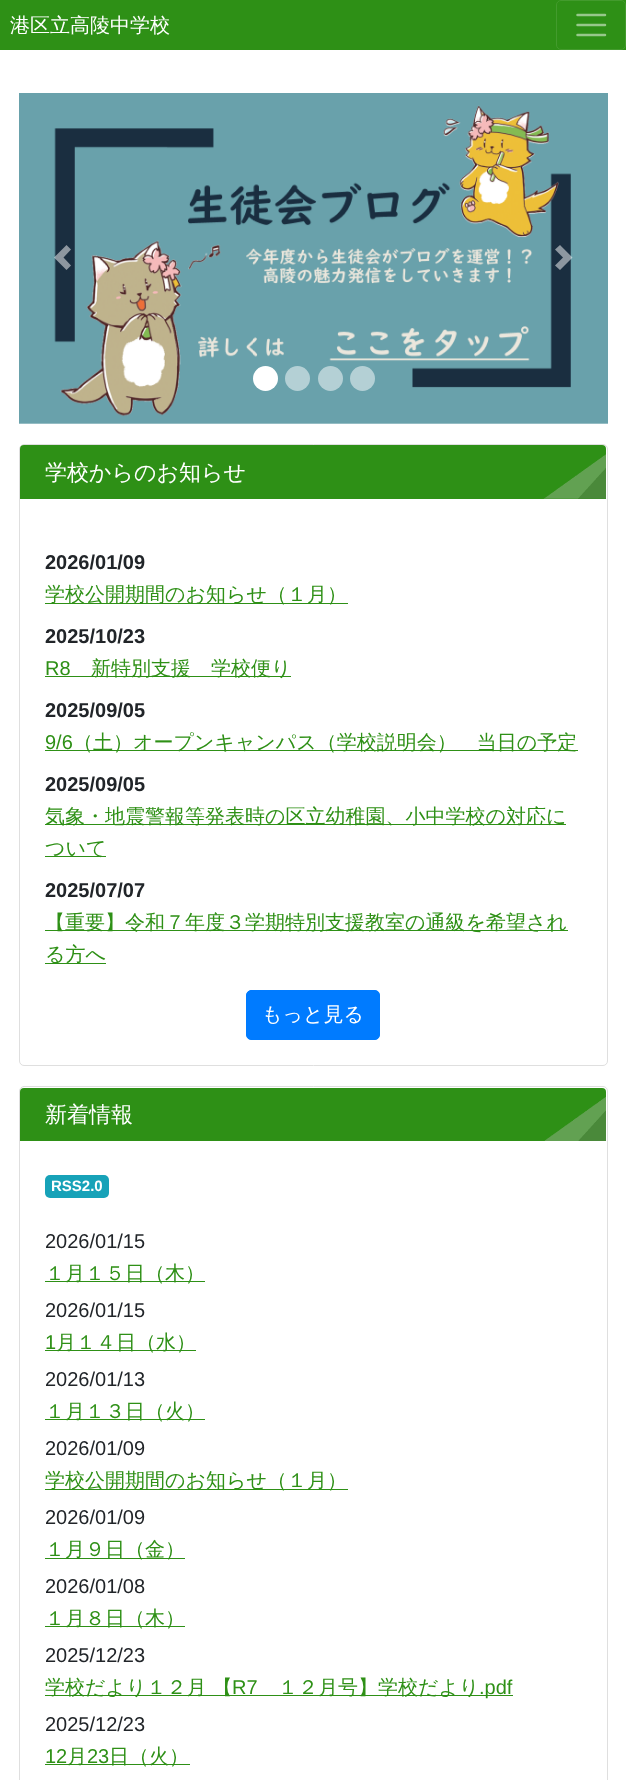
<!DOCTYPE html>
<meta charset="utf-8">
<style>body { margin: 0 } canvas { display: block }</style>
<canvas id="canvas" width="626" height="1780"></canvas>
<img id="img1" src="images/1.png" hidden>
<img id="img2" src="images/2.png" hidden>
<img id="img3" src="images/3.png" hidden>
<script>
window.onload = function () {
    const canvas = document.getElementById('canvas');
    const context = canvas.getContext('2d');
    context.miterLimit = 4;
    context.fontKerning = 'normal';

    context.fillStyle = 'rgb(255, 255, 255)';
    context.fillRect(0, 0, 626, 1780);
    context.fillStyle = 'rgb(46, 144, 22)';
    context.fillRect(0, 0, 626, 50);
    context.beginPath();
    context.roundRect(556.5, 0.5, 69, 49, 4.5);
    context.strokeStyle = 'rgb(67, 155, 45)';
    context.stroke();
    context.beginPath();
    context.moveTo(577.5, 15);
    context.lineTo(605, 15);
    context.moveTo(577.5, 25);
    context.lineTo(605, 25);
    context.moveTo(577.5, 35);
    context.lineTo(605, 35);
    context.strokeStyle = 'rgb(151, 200, 139)';
    context.lineWidth = 2.5;
    context.lineCap = 'round';
    context.stroke();
    context.drawImage(document.getElementById('img1'), 19, 93, 589, 331);
    context.fillStyle = 'rgba(255, 255, 255, 0.5)';
    context.beginPath();
    context.moveTo(66.5, 245);
    context.lineTo(54, 257.5);
    context.lineTo(66.5, 270);
    context.lineTo(71, 265.5);
    context.lineTo(63.5, 257.5);
    context.lineTo(71, 249.5);
    context.closePath();
    context.fill();
    context.beginPath();
    context.moveTo(560, 245);
    context.lineTo(555, 249.5);
    context.lineTo(563, 257.5);
    context.lineTo(555, 265.5);
    context.lineTo(560, 270);
    context.lineTo(572.5, 257.5);
    context.closePath();
    context.fill();
    context.fillStyle = 'rgb(255, 255, 255)';
    context.beginPath();
    context.arc(265.5, 378.5, 12.5, 0, 2 * Math.PI);
    context.fill();
    context.fillStyle = 'rgb(180, 208, 213)';
    context.beginPath();
    context.arc(297.5, 378.5, 12.5, 0, 2 * Math.PI);
    context.fill();
    context.beginPath();
    context.arc(330.5, 378.5, 12.5, 0, 2 * Math.PI);
    context.fill();
    context.beginPath();
    context.arc(362.5, 378.5, 12.5, 0, 2 * Math.PI);
    context.fill();
    context.beginPath();
    context.roundRect(19.5, 444.5, 588, 621, 4.5);
    context.strokeStyle = 'rgb(223, 223, 223)';
    context.lineWidth = 1;
    context.stroke();
    context.fillStyle = 'rgb(46, 144, 22)';
    context.beginPath();
    context.roundRect(20, 445, 586, 56, [4, 4, 0, 0]);
    context.fill();
    context.drawImage(document.getElementById('img2'), 543, 454, 63, 45);
    context.fillStyle = 'rgb(255, 255, 255)';
    context.fillRect(20, 499, 586, 2);
    context.fillStyle = 'rgb(46, 144, 22)';
    context.fillRect(45, 603, 303, 1);
    context.fillRect(45, 676, 246, 1);
    context.fillRect(45, 750, 533, 1);
    context.fillRect(45, 824, 521, 1);
    context.fillRect(45, 856, 61, 1);
    context.fillRect(45, 930, 523, 1);
    context.fillRect(45, 963, 61, 1);
    context.fillStyle = 'rgb(0, 123, 255)';
    context.beginPath();
    context.roundRect(246.5, 990.5, 133, 49, 4.5);
    context.fill();
    context.strokeStyle = 'rgb(0, 123, 255)';
    context.stroke();
    context.beginPath();
    context.roundRect(19.5, 1086.5, 588, 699, 4.5);
    context.strokeStyle = 'rgb(223, 223, 223)';
    context.stroke();
    context.fillStyle = 'rgb(46, 144, 22)';
    context.beginPath();
    context.roundRect(20, 1088, 586, 56, [4, 4, 0, 0]);
    context.fill();
    context.drawImage(document.getElementById('img3'), 544, 1097, 62, 44);
    context.fillStyle = 'rgb(255, 255, 255)';
    context.fillRect(20, 1141, 586, 3);
    context.fillStyle = 'rgb(23, 162, 184)';
    context.beginPath();
    context.roundRect(45, 1175, 64, 23, 5);
    context.fill();
    context.fillStyle = 'rgb(46, 144, 22)';
    context.fillRect(45, 1281, 160, 1);
    context.fillRect(45, 1350, 151, 1);
    context.fillRect(45, 1419, 160, 1);
    context.fillRect(45, 1489, 303, 1);
    context.fillRect(45, 1558, 140, 1);
    context.fillRect(45, 1626, 140, 1);
    context.fillRect(45, 1695, 468, 1);
    context.fillRect(45, 1764, 145, 1);
    context.font = '500 20px WenQuanYi Zen Hei';
    context.fillStyle = 'rgb(255, 255, 255)';
    context.fillText('港区立高陵中学校', 10, 32);
    context.font = '500 22px WenQuanYi Zen Hei';
    context.fillText('学校からのお知らせ', 45, 480);
    context.font = 'bold 20px Liberation Sans';
    context.fillStyle = 'rgb(33, 37, 41)';
    context.fillText('2026/01/09', 45, 569);
    context.font = '500 20px WenQuanYi Zen Hei';
    context.fillStyle = 'rgb(46, 144, 22)';
    context.fillText('学校公開期間のお知らせ（１月）', 45, 601);
    context.font = 'bold 20px Liberation Sans';
    context.fillStyle = 'rgb(33, 37, 41)';
    context.fillText('2025/10/23', 45, 643);
    context.font = '20px Liberation Sans';
    context.fillStyle = 'rgb(46, 144, 22)';
    context.fillText('R8', 45, 675);
    context.font = '500 20px WenQuanYi Zen Hei';
    context.fillText('新特別支援　学校便り', 91, 675);
    context.font = 'bold 20px Liberation Sans';
    context.fillStyle = 'rgb(33, 37, 41)';
    context.fillText('2025/09/05', 45, 717);
    context.font = '20px Liberation Sans';
    context.fillStyle = 'rgb(46, 144, 22)';
    context.fillText('9/6', 45, 749);
    context.font = '500 20px WenQuanYi Zen Hei';
    context.fillText('（土）オープンキャンパス（学校説明会）　当日の予定', 73, 749);
    context.font = 'bold 20px Liberation Sans';
    context.fillStyle = 'rgb(33, 37, 41)';
    context.fillText('2025/09/05', 45, 791);
    context.font = '500 20px WenQuanYi Zen Hei';
    context.fillStyle = 'rgb(46, 144, 22)';
    context.fillText('気象・地震警報等発表時の区立幼稚園、小中学校の対応に', 45, 823);
    context.fillText('ついて', 45, 855);
    context.font = 'bold 20px Liberation Sans';
    context.fillStyle = 'rgb(33, 37, 41)';
    context.fillText('2025/07/07', 45, 897);
    context.font = '500 20px WenQuanYi Zen Hei';
    context.fillStyle = 'rgb(46, 144, 22)';
    context.fillText('【重要】令和７年度３学期特別支援教室の通級を希望され', 45, 929);
    context.fillText('る方へ', 45, 961);
    context.fillStyle = 'rgb(255, 255, 255)';
    context.fillText('もっと見る', 262, 1021);
    context.font = '500 22px WenQuanYi Zen Hei';
    context.fillText('新着情報', 45, 1122);
    context.font = 'bold 15px Liberation Sans';
    context.fillText('RSS2.0', 51, 1191);
    context.font = '20px Liberation Sans';
    context.fillStyle = 'rgb(33, 37, 41)';
    context.fillText('2026/01/15', 45, 1248);
    context.font = '500 20px WenQuanYi Zen Hei';
    context.fillStyle = 'rgb(46, 144, 22)';
    context.fillText('１月１５日（木）', 45, 1280);
    context.font = '20px Liberation Sans';
    context.fillStyle = 'rgb(33, 37, 41)';
    context.fillText('2026/01/15', 45, 1317);
    context.fillStyle = 'rgb(46, 144, 22)';
    context.fillText('1', 45, 1349);
    context.font = '500 20px WenQuanYi Zen Hei';
    context.fillText('月１４日（水）', 56, 1349);
    context.font = '20px Liberation Sans';
    context.fillStyle = 'rgb(33, 37, 41)';
    context.fillText('2026/01/13', 45, 1386);
    context.font = '500 20px WenQuanYi Zen Hei';
    context.fillStyle = 'rgb(46, 144, 22)';
    context.fillText('１月１３日（火）', 45, 1418);
    context.font = '20px Liberation Sans';
    context.fillStyle = 'rgb(33, 37, 41)';
    context.fillText('2026/01/09', 45, 1455);
    context.font = '500 20px WenQuanYi Zen Hei';
    context.fillStyle = 'rgb(46, 144, 22)';
    context.fillText('学校公開期間のお知らせ（１月）', 45, 1487);
    context.font = '20px Liberation Sans';
    context.fillStyle = 'rgb(33, 37, 41)';
    context.fillText('2026/01/09', 45, 1524);
    context.font = '500 20px WenQuanYi Zen Hei';
    context.fillStyle = 'rgb(46, 144, 22)';
    context.fillText('１月９日（金）', 45, 1556);
    context.font = '20px Liberation Sans';
    context.fillStyle = 'rgb(33, 37, 41)';
    context.fillText('2026/01/08', 45, 1593);
    context.font = '500 20px WenQuanYi Zen Hei';
    context.fillStyle = 'rgb(46, 144, 22)';
    context.fillText('１月８日（木）', 45, 1625);
    context.font = '20px Liberation Sans';
    context.fillStyle = 'rgb(33, 37, 41)';
    context.fillText('2025/12/23', 45, 1662);
    context.font = '500 20px WenQuanYi Zen Hei';
    context.fillStyle = 'rgb(46, 144, 22)';
    context.fillText('学校だより１２月 【', 45, 1694);
    context.font = '20px Liberation Sans';
    context.fillText('R7', 232, 1694);
    context.font = '500 20px WenQuanYi Zen Hei';
    context.fillText('１２月号】学校だより', 278, 1694);
    context.font = '20px Liberation Sans';
    context.fillText('.pdf', 479, 1694);
    context.fillStyle = 'rgb(33, 37, 41)';
    context.fillText('2025/12/23', 45, 1731);
    context.fillStyle = 'rgb(46, 144, 22)';
    context.fillText('12', 45, 1763);
    context.font = '500 20px WenQuanYi Zen Hei';
    context.fillText('月', 67, 1763);
    context.font = '20px Liberation Sans';
    context.fillText('23', 87, 1763);
    context.font = '500 20px WenQuanYi Zen Hei';
    context.fillText('日（火）', 109, 1763);
};
</script>
